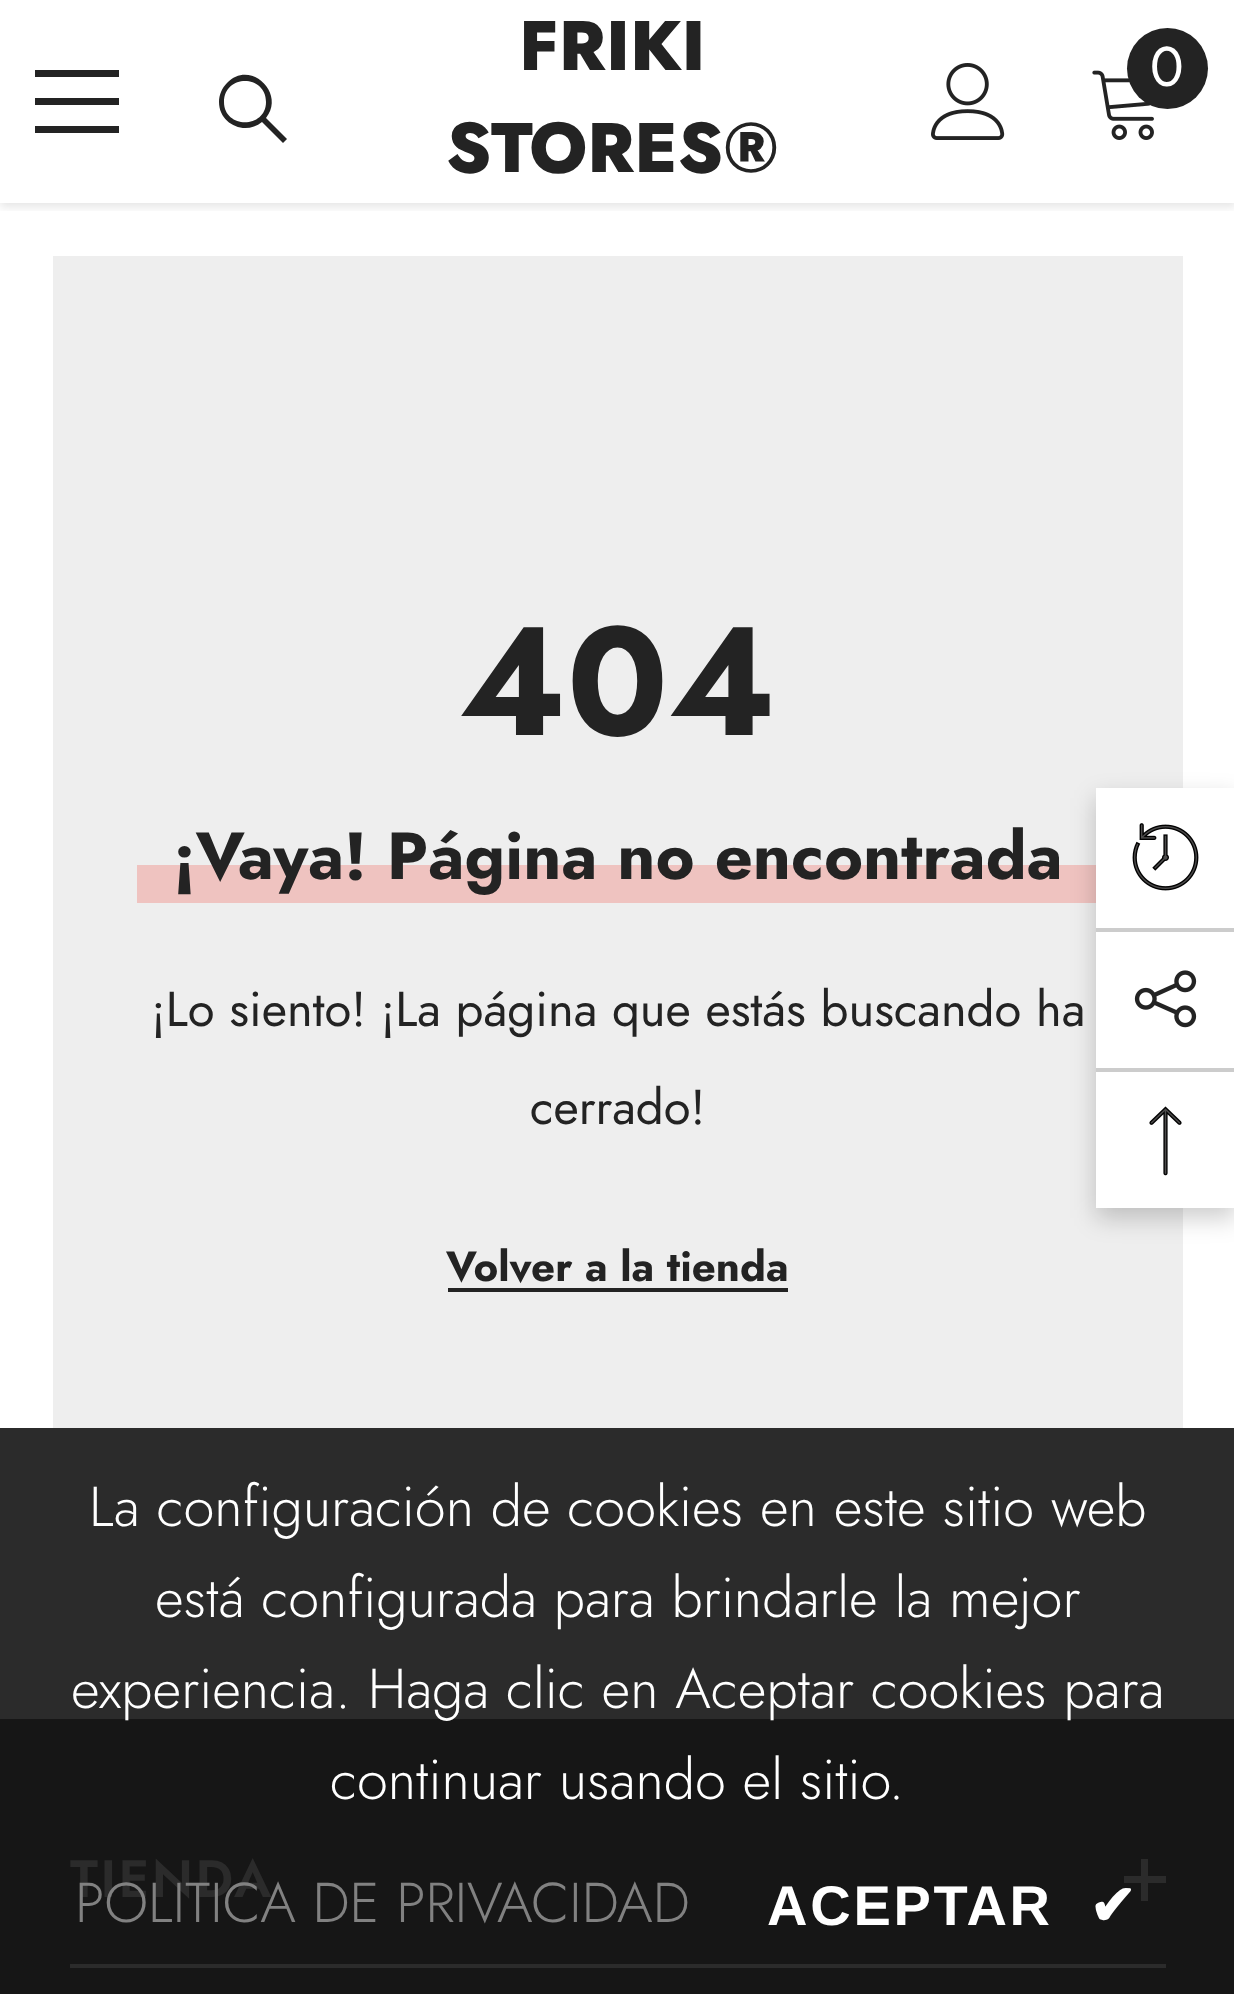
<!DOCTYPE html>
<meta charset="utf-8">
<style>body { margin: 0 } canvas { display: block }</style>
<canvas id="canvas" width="1234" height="1994"></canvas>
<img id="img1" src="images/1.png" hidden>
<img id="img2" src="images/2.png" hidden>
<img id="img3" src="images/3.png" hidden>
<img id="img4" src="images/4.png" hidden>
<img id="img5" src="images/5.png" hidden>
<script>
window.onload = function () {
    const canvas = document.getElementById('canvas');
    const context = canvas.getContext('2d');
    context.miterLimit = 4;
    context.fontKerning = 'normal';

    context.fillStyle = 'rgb(255, 255, 255)';
    context.fillRect(0, 0, 1234, 1994);
    context.fillStyle = 'rgb(43, 43, 43)';
    context.fillRect(0, 1428, 1234, 291);
    context.save();
    context.beginPath();
    context.rect(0, 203, 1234, 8);
    context.clip();
    context.fillStyle = 'rgba(0, 0, 0, 0.1)';
    context.filter = 'blur(5px)';
    context.beginPath();
    context.rect(0, 4, 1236, 203);
    context.fill();
    context.filter = 'none';
    context.restore();
    context.fillStyle = 'rgb(35, 35, 35)';
    context.fillRect(35, 98, 84, 7);
    context.fillRect(35, 70, 84, 7);
    context.fillRect(35, 126, 84, 7);
    context.beginPath();
    context.moveTo(219, 102);
    context.bezierCurveTo(219, 124, 245, 136, 262, 122);
    context.lineTo(283, 143);
    context.lineTo(287, 139);
    context.lineTo(266, 118);
    context.bezierCurveTo(286, 93, 250, 59, 227, 83);
    context.bezierCurveTo(222, 88, 219, 95, 219, 102);
    context.closePath();
    context.moveTo(224, 102);
    context.bezierCurveTo(224, 74, 266, 74, 266, 102);
    context.bezierCurveTo(266, 129, 224, 129, 224, 102);
    context.closePath();
    context.fill();
    context.drawImage(document.getElementById('img1'), 931, 63, 74, 77);
    context.drawImage(document.getElementById('img2'), 1092, 70, 62, 70);
    context.beginPath();
    context.arc(1167.5, 68.5, 40.5, 0, 2 * Math.PI);
    context.fill();
    context.fillStyle = 'rgb(238, 238, 238)';
    context.fillRect(53, 256, 1130, 1172);
    context.fillStyle = 'rgb(239, 195, 192)';
    context.fillRect(137, 865, 959, 38);
    context.fillStyle = 'rgb(35, 35, 35)';
    context.fillRect(448, 1288, 340, 4);
    context.fillStyle = 'rgb(22, 22, 22)';
    context.fillRect(0, 1719, 1234, 275);
    context.fillStyle = 'rgb(43, 43, 43)';
    context.fillRect(70, 1964, 1096, 4);
    context.fillRect(1141, 1859, 7, 42);
    context.fillRect(1124, 1876, 42, 7);
    context.fillStyle = 'rgba(0, 0, 0, 0.2)';
    context.filter = 'blur(12px)';
    context.beginPath();
    context.rect(1096, 798, 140, 420);
    context.fill();
    context.filter = 'none';
    context.fillStyle = 'rgb(255, 255, 255)';
    context.fillRect(1096, 788, 138, 420);
    context.drawImage(document.getElementById('img3'), 1132, 823, 67, 68);
    context.fillStyle = 'rgb(204, 204, 204)';
    context.fillRect(1096, 928, 138, 4);
    context.drawImage(document.getElementById('img4'), 1134, 970, 63, 58);
    context.fillRect(1096, 1068, 138, 4);
    context.drawImage(document.getElementById('img5'), 1149, 1106, 33, 70);
    context.font = '800 70px Jost';
    context.fillStyle = 'rgb(35, 35, 35)';
    context.fillText('FRIKI', 519, 70);
    context.fillText('STORES®', 446, 172);
    context.font = '56px Jost';
    context.fillStyle = 'rgb(255, 255, 255)';
    context.fillText('0', 1150, 86);
    context.font = 'bold 154px Jost';
    context.fillStyle = 'rgb(35, 35, 35)';
    context.fillText('404', 459, 735);
    context.font = 'bold 66.5px Jost';
    context.fillText('¡Vaya! Página no encontrada', 173, 879);
    context.font = '49px Jost';
    context.fillText('¡Lo siento! ¡La página que estás buscando ha', 151, 1026);
    context.fillText('cerrado!', 530, 1124);
    context.font = 'bold 42px Jost';
    context.fillText('Volver a la tienda', 446, 1281);
    context.letterSpacing = '2.5px';
    context.font = '600 52.5px Jost';
    context.fillStyle = 'rgb(43, 43, 43)';
    context.fillText('TIENDA', 70, 1897);
    context.letterSpacing = '0px';
    context.font = '300 56px Jost';
    context.fillStyle = 'rgb(255, 255, 255)';
    context.fillText('La configuración de cookies en este sitio web', 89, 1526);
    context.fillText('está configurada para brindarle la mejor', 155, 1617);
    context.fillText('experiencia. Haga clic en Aceptar cookies para', 71, 1708);
    context.fillText('continuar usando el sitio.', 330, 1799);
    context.fillStyle = 'rgb(129, 129, 129)';
    context.fillText('POLITICA DE PRIVACIDAD', 75, 1922);
    context.letterSpacing = '2.75px';
    context.font = 'bold 56px Liberation Sans';
    context.fillStyle = 'rgb(255, 255, 255)';
    context.fillText('ACEPTAR', 767, 1925);
    context.font = 'bold 56px DejaVu Sans';
    context.fillText('✔', 1089, 1925);
};
</script>
